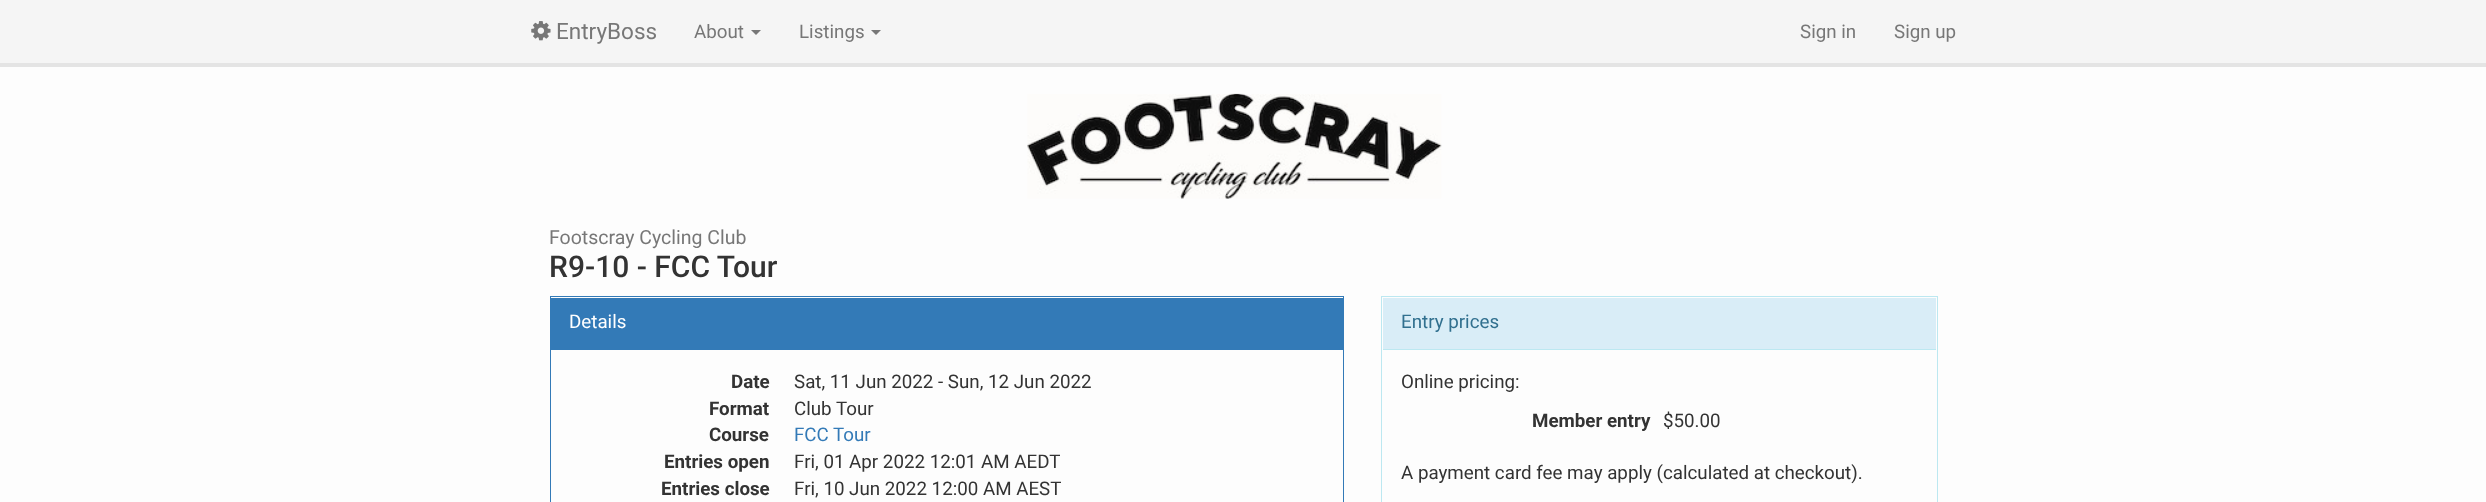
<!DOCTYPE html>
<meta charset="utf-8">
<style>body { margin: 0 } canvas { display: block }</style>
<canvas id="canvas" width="2486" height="502"></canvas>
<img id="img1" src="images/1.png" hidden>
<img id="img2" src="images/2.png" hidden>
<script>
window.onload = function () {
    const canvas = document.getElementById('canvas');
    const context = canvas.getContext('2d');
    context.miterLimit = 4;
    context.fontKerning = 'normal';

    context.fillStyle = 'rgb(253, 253, 253)';
    context.fillRect(0, 0, 2486, 502);
    context.fillStyle = 'rgb(245, 245, 245)';
    context.fillRect(0, 0, 2486, 63);
    context.fillStyle = 'rgb(228, 228, 228)';
    context.fillRect(0, 63, 2486, 4);
    context.drawImage(document.getElementById('img1'), 531, 21, 20, 20);
    context.fillStyle = 'rgb(119, 119, 119)';
    context.beginPath();
    context.moveTo(751, 30);
    context.lineTo(761, 30);
    context.lineTo(756, 35);
    context.closePath();
    context.fill();
    context.beginPath();
    context.moveTo(871, 30);
    context.lineTo(881, 30);
    context.lineTo(876, 35);
    context.closePath();
    context.fill();
    context.drawImage(document.getElementById('img2'), 1027, 93, 415, 106);
    context.strokeStyle = 'rgb(51, 122, 183)';
    context.strokeRect(550.5, 296.5, 793, 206);
    context.fillStyle = 'rgb(51, 122, 183)';
    context.fillRect(551, 298, 792, 52);
    context.strokeStyle = 'rgb(188, 232, 241)';
    context.strokeRect(1381.5, 296.5, 556, 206);
    context.fillStyle = 'rgb(217, 237, 247)';
    context.fillRect(1383, 298, 553, 51);
    context.fillStyle = 'rgb(188, 232, 241)';
    context.fillRect(1383, 349, 553, 1);
    context.font = '22.5px Roboto';
    context.fillStyle = 'rgb(119, 119, 119)';
    context.fillText('EntryBoss', 556, 39);
    context.font = '18.75px Roboto';
    context.fillText('About', 694, 38);
    context.fillText('Listings', 799, 38);
    context.fillText('Sign in', 1800, 38);
    context.fillText('Sign up', 1894, 38);
    context.font = '19.5px Roboto';
    context.fillText('Footscray Cycling Club', 549, 244);
    context.font = '500 30px Roboto';
    context.fillStyle = 'rgb(51, 51, 51)';
    context.fillText('R9-10 - FCC Tour', 549, 277);
    context.font = '18.75px Roboto';
    context.fillStyle = 'rgb(255, 255, 255)';
    context.fillText('Details', 569, 328);
    context.font = 'bold 18.75px Roboto';
    context.fillStyle = 'rgb(51, 51, 51)';
    context.fillText('Date', 731, 388);
    context.font = '18.75px Roboto';
    context.fillText('Sat, 11 Jun 2022 - Sun, 12 Jun 2022', 794, 388);
    context.font = 'bold 18.75px Roboto';
    context.fillText('Format', 709, 415);
    context.font = '18.75px Roboto';
    context.fillText('Club Tour', 794, 415);
    context.font = 'bold 18.75px Roboto';
    context.fillText('Course', 709, 441);
    context.font = '18.75px Roboto';
    context.fillStyle = 'rgb(51, 122, 183)';
    context.fillText('FCC Tour', 794, 441);
    context.font = 'bold 18.75px Roboto';
    context.fillStyle = 'rgb(51, 51, 51)';
    context.fillText('Entries open', 664, 468);
    context.font = '18.75px Roboto';
    context.fillText('Fri, 01 Apr 2022 12:01 AM AEDT', 794, 468);
    context.font = 'bold 18.75px Roboto';
    context.fillText('Entries close', 661, 495);
    context.font = '18.75px Roboto';
    context.fillText('Fri, 10 Jun 2022 12:00 AM AEST', 794, 495);
    context.fillStyle = 'rgb(49, 112, 143)';
    context.fillText('Entry prices', 1401, 328);
    context.fillStyle = 'rgb(51, 51, 51)';
    context.fillText('Online pricing:', 1401, 388);
    context.font = 'bold 18.75px Roboto';
    context.fillText('Member entry', 1532, 427);
    context.font = '18.75px Roboto';
    context.fillText('$50.00', 1663, 427);
    context.fillText('A payment card fee may apply (calculated at checkout).', 1401, 479);
};
</script>
